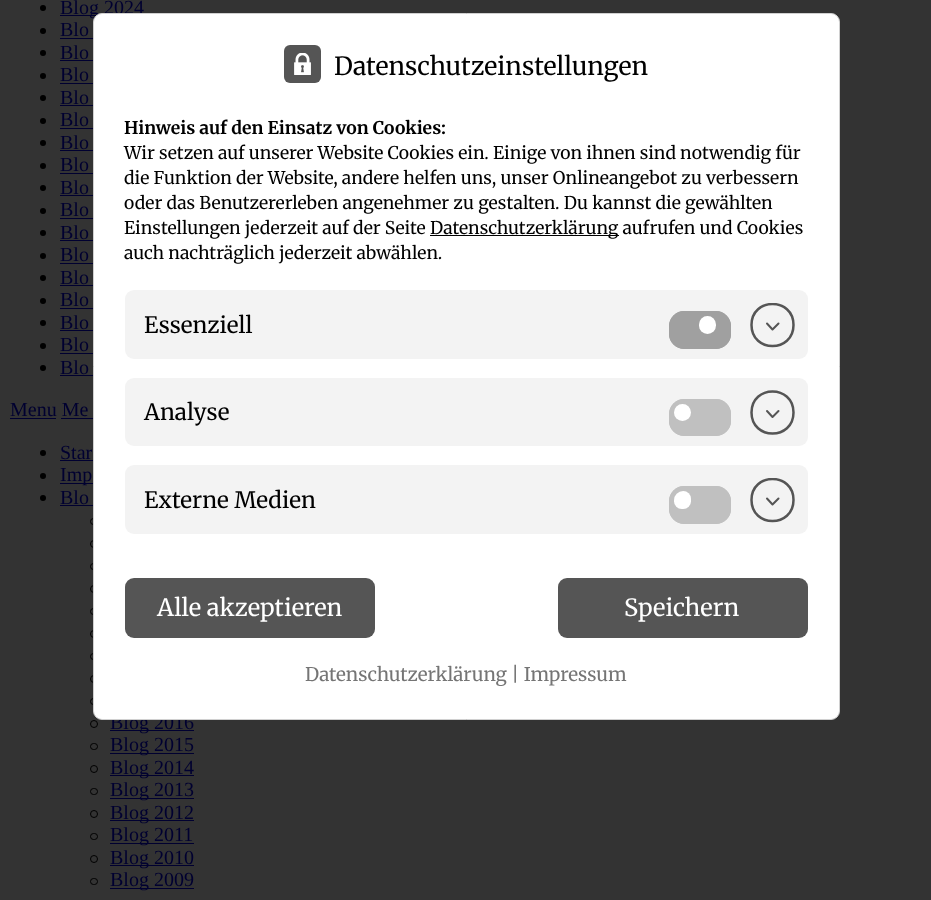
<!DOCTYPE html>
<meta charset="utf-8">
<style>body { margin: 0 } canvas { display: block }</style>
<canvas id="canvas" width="931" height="900"></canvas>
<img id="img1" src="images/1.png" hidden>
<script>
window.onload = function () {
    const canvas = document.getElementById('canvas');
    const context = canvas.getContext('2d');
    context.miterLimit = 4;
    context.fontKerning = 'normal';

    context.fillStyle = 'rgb(51, 51, 51)';
    context.fillRect(0, 0, 931, 900);
    context.fillStyle = 'rgb(0, 0, 0)';
    context.beginPath();
    context.arc(43, 8, 3, 0, 2 * Math.PI);
    context.fill();
    context.fillStyle = 'rgb(0, 0, 48)';
    context.fillRect(60, 15, 37, 1);
    context.fillStyle = 'rgb(0, 0, 0)';
    context.beginPath();
    context.arc(43, 31, 3, 0, 2 * Math.PI);
    context.fill();
    context.fillStyle = 'rgb(0, 0, 48)';
    context.fillRect(60, 38, 33, 1);
    context.fillStyle = 'rgb(0, 0, 0)';
    context.beginPath();
    context.arc(43, 53, 3, 0, 2 * Math.PI);
    context.fill();
    context.fillStyle = 'rgb(0, 0, 48)';
    context.fillRect(60, 60, 33, 1);
    context.fillStyle = 'rgb(0, 0, 0)';
    context.beginPath();
    context.arc(43, 76, 3, 0, 2 * Math.PI);
    context.fill();
    context.fillStyle = 'rgb(0, 0, 48)';
    context.fillRect(60, 83, 33, 1);
    context.fillStyle = 'rgb(0, 0, 0)';
    context.beginPath();
    context.arc(43, 98, 3, 0, 2 * Math.PI);
    context.fill();
    context.fillStyle = 'rgb(0, 0, 48)';
    context.fillRect(60, 105, 33, 1);
    context.fillStyle = 'rgb(0, 0, 0)';
    context.beginPath();
    context.arc(43, 121, 3, 0, 2 * Math.PI);
    context.fill();
    context.fillStyle = 'rgb(0, 0, 48)';
    context.fillRect(60, 128, 33, 1);
    context.fillStyle = 'rgb(0, 0, 0)';
    context.beginPath();
    context.arc(43, 143, 3, 0, 2 * Math.PI);
    context.fill();
    context.fillStyle = 'rgb(0, 0, 48)';
    context.fillRect(60, 150, 33, 1);
    context.fillStyle = 'rgb(0, 0, 0)';
    context.beginPath();
    context.arc(43, 166, 3, 0, 2 * Math.PI);
    context.fill();
    context.fillStyle = 'rgb(0, 0, 48)';
    context.fillRect(60, 173, 33, 1);
    context.fillStyle = 'rgb(0, 0, 0)';
    context.beginPath();
    context.arc(43, 188, 3, 0, 2 * Math.PI);
    context.fill();
    context.fillStyle = 'rgb(0, 0, 48)';
    context.fillRect(60, 195, 33, 1);
    context.fillStyle = 'rgb(0, 0, 0)';
    context.beginPath();
    context.arc(43, 211, 3, 0, 2 * Math.PI);
    context.fill();
    context.fillStyle = 'rgb(0, 0, 48)';
    context.fillRect(60, 218, 33, 1);
    context.fillStyle = 'rgb(0, 0, 0)';
    context.beginPath();
    context.arc(43, 233, 3, 0, 2 * Math.PI);
    context.fill();
    context.fillStyle = 'rgb(0, 0, 48)';
    context.fillRect(60, 240, 33, 1);
    context.fillStyle = 'rgb(0, 0, 0)';
    context.beginPath();
    context.arc(43, 256, 3, 0, 2 * Math.PI);
    context.fill();
    context.fillStyle = 'rgb(0, 0, 48)';
    context.fillRect(60, 263, 33, 1);
    context.fillStyle = 'rgb(0, 0, 0)';
    context.beginPath();
    context.arc(43, 278, 3, 0, 2 * Math.PI);
    context.fill();
    context.fillStyle = 'rgb(0, 0, 48)';
    context.fillRect(60, 285, 33, 1);
    context.fillStyle = 'rgb(0, 0, 0)';
    context.beginPath();
    context.arc(43, 301, 3, 0, 2 * Math.PI);
    context.fill();
    context.fillStyle = 'rgb(0, 0, 48)';
    context.fillRect(60, 308, 33, 1);
    context.fillStyle = 'rgb(0, 0, 0)';
    context.beginPath();
    context.arc(43, 323, 3, 0, 2 * Math.PI);
    context.fill();
    context.fillStyle = 'rgb(0, 0, 48)';
    context.fillRect(60, 330, 33, 1);
    context.fillStyle = 'rgb(0, 0, 0)';
    context.beginPath();
    context.arc(43, 346, 3, 0, 2 * Math.PI);
    context.fill();
    context.fillStyle = 'rgb(0, 0, 48)';
    context.fillRect(60, 353, 33, 1);
    context.fillStyle = 'rgb(0, 0, 0)';
    context.beginPath();
    context.arc(43, 368, 3, 0, 2 * Math.PI);
    context.fill();
    context.fillStyle = 'rgb(0, 0, 48)';
    context.fillRect(60, 375, 33, 1);
    context.fillRect(10, 418, 46, 1);
    context.fillRect(61, 418, 32, 1);
    context.fillStyle = 'rgb(0, 0, 0)';
    context.beginPath();
    context.arc(43, 453, 3, 0, 2 * Math.PI);
    context.fill();
    context.fillStyle = 'rgb(0, 0, 48)';
    context.fillRect(60, 460, 33, 1);
    context.fillStyle = 'rgb(0, 0, 0)';
    context.beginPath();
    context.arc(43, 476, 3, 0, 2 * Math.PI);
    context.fill();
    context.fillStyle = 'rgb(0, 0, 48)';
    context.fillRect(60, 483, 33, 1);
    context.fillStyle = 'rgb(0, 0, 0)';
    context.beginPath();
    context.arc(43, 498, 3, 0, 2 * Math.PI);
    context.fill();
    context.fillStyle = 'rgb(0, 0, 48)';
    context.fillRect(60, 505, 39, 1);
    context.beginPath();
    context.roundRect(90.5, 518.5, 7, 6, 3);
    context.strokeStyle = 'rgb(0, 0, 0)';
    context.stroke();
    context.beginPath();
    context.arc(94, 544, 3.5, 0, 2 * Math.PI);
    context.stroke();
    context.beginPath();
    context.roundRect(90.5, 563.5, 7, 6, 3);
    context.stroke();
    context.beginPath();
    context.arc(94, 589, 3.5, 0, 2 * Math.PI);
    context.stroke();
    context.beginPath();
    context.roundRect(90.5, 608.5, 7, 6, 3);
    context.stroke();
    context.beginPath();
    context.arc(94, 634, 3.5, 0, 2 * Math.PI);
    context.stroke();
    context.beginPath();
    context.roundRect(90.5, 653.5, 7, 6, 3);
    context.stroke();
    context.beginPath();
    context.arc(94, 679, 3.5, 0, 2 * Math.PI);
    context.stroke();
    context.beginPath();
    context.roundRect(90.5, 698.5, 7, 6, 3);
    context.stroke();
    context.beginPath();
    context.arc(94, 724, 3.5, 0, 2 * Math.PI);
    context.stroke();
    context.fillRect(110, 730, 84, 1);
    context.beginPath();
    context.roundRect(90.5, 743.5, 7, 6, 3);
    context.stroke();
    context.fillRect(110, 753, 84, 1);
    context.beginPath();
    context.arc(94, 769, 3.5, 0, 2 * Math.PI);
    context.stroke();
    context.fillRect(110, 775, 84, 1);
    context.beginPath();
    context.roundRect(90.5, 788.5, 7, 6, 3);
    context.stroke();
    context.fillRect(110, 798, 84, 1);
    context.beginPath();
    context.arc(94, 814, 3.5, 0, 2 * Math.PI);
    context.stroke();
    context.fillRect(110, 820, 84, 1);
    context.beginPath();
    context.roundRect(90.5, 833.5, 7, 6, 3);
    context.stroke();
    context.fillRect(110, 843, 84, 1);
    context.beginPath();
    context.arc(94, 859, 3.5, 0, 2 * Math.PI);
    context.stroke();
    context.fillRect(110, 865, 84, 1);
    context.beginPath();
    context.roundRect(90.5, 878.5, 7, 6, 3);
    context.stroke();
    context.fillRect(110, 888, 84, 1);
    context.font = '20px Liberation Serif';
    context.fillText('Blog 2024', 60, 14);
    context.fillText('Blo', 60, 36);
    context.fillText('Blo', 60, 59);
    context.fillText('Blo', 60, 81);
    context.fillText('Blo', 60, 104);
    context.fillText('Blo', 60, 126);
    context.fillText('Blo', 60, 149);
    context.fillText('Blo', 60, 171);
    context.fillText('Blo', 60, 194);
    context.fillText('Blo', 60, 216);
    context.fillText('Blo', 60, 239);
    context.fillText('Blo', 60, 261);
    context.fillText('Blo', 60, 284);
    context.fillText('Blo', 60, 306);
    context.fillText('Blo', 60, 329);
    context.fillText('Blo', 60, 351);
    context.fillText('Blo', 60, 374);
    context.fillText('Menu Me', 10, 416);
    context.fillText('Star', 60, 459);
    context.fillText('Imp', 60, 481);
    context.fillText('Blo', 60, 504);
    context.fillText('Blog 2016', 110, 729);
    context.fillText('Blog 2015', 110, 751);
    context.fillText('Blog 2014', 110, 774);
    context.fillText('Blog 2013', 110, 796);
    context.fillText('Blog 2012', 110, 819);
    context.fillText('Blog 2011', 110, 841);
    context.fillText('Blog 2010', 110, 864);
    context.fillText('Blog 2009', 110, 886);
    context.fillStyle = 'rgb(255, 255, 255)';
    context.beginPath();
    context.roundRect(93.5, 13.5, 746, 706, 8.5);
    context.fill();
    context.strokeStyle = 'rgb(208, 208, 208)';
    context.stroke();
    context.fillStyle = 'rgb(85, 85, 85)';
    context.beginPath();
    context.roundRect(284, 45, 37, 38, 6);
    context.fill();
    context.drawImage(document.getElementById('img1'), 294, 53, 17, 22);
    context.font = '25px Merriweather';
    context.fillStyle = 'rgb(0, 0, 0)';
    context.fillText('Datenschutzeinstellungen', 334, 75);
    context.font = 'bold 17.5px Merriweather';
    context.fillText('Hinweis auf den Einsatz von Cookies:', 124, 134);
    context.font = '17.5px Merriweather';
    context.fillText('Wir setzen auf unserer Website Cookies ein. Einige von ihnen sind notwendig für', 124, 159);
    context.fillText('die Funktion der Website, andere helfen uns, unser Onlineangebot zu verbessern', 124, 184);
    context.fillText('oder das Benutzererleben angenehmer zu gestalten. Du kannst die gewählten', 124, 209);
    context.fillText('Einstellungen jederzeit auf der Seite', 124, 234);
    context.fillRect(430, 235, 189, 1);
    context.fillText('Datenschutzerklärung aufrufen und Cookies', 430, 234);
    context.fillText('auch nachträglich jederzeit abwählen.', 124, 259);
    context.fillStyle = 'rgb(243, 243, 243)';
    context.beginPath();
    context.roundRect(125, 290, 683, 69, 9);
    context.fill();
    context.font = '22.5px Merriweather';
    context.fillStyle = 'rgb(0, 0, 0)';
    context.fillText('Essenziell', 144, 333);
    context.fillStyle = 'rgb(160, 160, 160)';
    context.beginPath();
    context.roundRect(669, 311, 62, 38, 15);
    context.fill();
    context.beginPath();
    context.moveTo(684, 311);
    context.lineTo(716, 311);
    context.bezierCurveTo(724, 311, 731, 318, 731, 326);
    context.lineTo(731, 334);
    context.bezierCurveTo(731, 342, 724, 349, 716, 349);
    context.lineTo(684, 349);
    context.bezierCurveTo(676, 349, 669, 342, 669, 334);
    context.lineTo(669, 326);
    context.bezierCurveTo(669, 318, 676, 311, 684, 311);
    context.closePath();
    context.fill();
    context.fillStyle = 'rgb(255, 255, 255)';
    context.beginPath();
    context.roundRect(699, 316, 17, 18, 8.5);
    context.fill();
    context.save();
    context.beginPath();
    context.rect(750, 303, 45, 45);
    context.clip();
    context.beginPath();
    context.moveTo(751.5, 325);
    context.bezierCurveTo(751.5, 297, 793.5, 297, 793.5, 325);
    context.bezierCurveTo(793.5, 353, 751.5, 353, 751.5, 325);
    context.closePath();
    context.strokeStyle = 'rgb(85, 85, 85)';
    context.lineWidth = 2.5;
    context.stroke();
    context.restore();
    context.beginPath();
    context.moveTo(767, 323.5);
    context.lineTo(772.5, 329.5);
    context.lineTo(778.5, 323.5);
    context.strokeStyle = 'rgb(85, 85, 85)';
    context.lineWidth = 2;
    context.lineCap = 'round';
    context.lineJoin = 'round';
    context.stroke();
    context.fillStyle = 'rgb(243, 243, 243)';
    context.beginPath();
    context.roundRect(125, 378, 683, 68, 9);
    context.fill();
    context.fillStyle = 'rgb(0, 0, 0)';
    context.fillText('Analyse', 144, 420);
    context.fillStyle = 'rgb(192, 192, 192)';
    context.beginPath();
    context.roundRect(669, 399, 62, 37, 15);
    context.fill();
    context.beginPath();
    context.moveTo(684, 399);
    context.lineTo(716, 399);
    context.bezierCurveTo(724, 399, 731, 406, 731, 414);
    context.lineTo(731, 421);
    context.bezierCurveTo(731, 429, 724, 436, 716, 436);
    context.lineTo(684, 436);
    context.bezierCurveTo(676, 436, 669, 429, 669, 421);
    context.lineTo(669, 414);
    context.bezierCurveTo(669, 406, 676, 399, 684, 399);
    context.closePath();
    context.fill();
    context.fillStyle = 'rgb(255, 255, 255)';
    context.beginPath();
    context.arc(682.5, 412.5, 8.5, 0, 2 * Math.PI);
    context.fill();
    context.beginPath();
    context.moveTo(751.5, 412.5);
    context.bezierCurveTo(751.5, 384.5, 793.5, 384.5, 793.5, 412.5);
    context.bezierCurveTo(793.5, 440.5, 751.5, 440.5, 751.5, 412.5);
    context.closePath();
    context.lineWidth = 2.5;
    context.lineCap = 'butt';
    context.lineJoin = 'miter';
    context.stroke();
    context.beginPath();
    context.moveTo(767, 411);
    context.lineTo(772.5, 417);
    context.lineTo(778.5, 411);
    context.lineWidth = 2;
    context.lineCap = 'round';
    context.lineJoin = 'round';
    context.stroke();
    context.fillStyle = 'rgb(243, 243, 243)';
    context.beginPath();
    context.roundRect(125, 465, 683, 69, 9);
    context.fill();
    context.fillStyle = 'rgb(0, 0, 0)';
    context.fillText('Externe Medien', 144, 508);
    context.fillStyle = 'rgb(192, 192, 192)';
    context.beginPath();
    context.roundRect(669, 486, 62, 38, 15);
    context.fill();
    context.beginPath();
    context.moveTo(684, 486);
    context.lineTo(716, 486);
    context.bezierCurveTo(724, 486, 731, 493, 731, 501);
    context.lineTo(731, 509);
    context.bezierCurveTo(731, 517, 724, 524, 716, 524);
    context.lineTo(684, 524);
    context.bezierCurveTo(676, 524, 669, 517, 669, 509);
    context.lineTo(669, 501);
    context.bezierCurveTo(669, 493, 676, 486, 684, 486);
    context.closePath();
    context.fill();
    context.fillStyle = 'rgb(255, 255, 255)';
    context.beginPath();
    context.roundRect(674, 491, 17, 18, [10, 8.5, 8.5, 8.5]);
    context.fill();
    context.save();
    context.beginPath();
    context.rect(750, 478, 45, 45);
    context.clip();
    context.beginPath();
    context.moveTo(751.5, 500);
    context.bezierCurveTo(751.5, 472, 793.5, 472, 793.5, 500);
    context.bezierCurveTo(793.5, 528, 751.5, 528, 751.5, 500);
    context.closePath();
    context.lineWidth = 2.5;
    context.lineCap = 'butt';
    context.lineJoin = 'miter';
    context.stroke();
    context.restore();
    context.beginPath();
    context.moveTo(767, 498.5);
    context.lineTo(772.5, 504.5);
    context.lineTo(778.5, 498.5);
    context.stroke();
    context.fillStyle = 'rgb(85, 85, 85)';
    context.beginPath();
    context.roundRect(125, 578, 250, 60, 9);
    context.fill();
    context.font = '23.75px Merriweather';
    context.fillStyle = 'rgb(255, 255, 255)';
    context.fillText('Alle akzeptieren', 157, 616);
    context.fillStyle = 'rgb(85, 85, 85)';
    context.beginPath();
    context.roundRect(558, 578, 250, 60, 9);
    context.fill();
    context.fillStyle = 'rgb(255, 255, 255)';
    context.fillText('Speichern', 624, 616);
    context.font = '18.75px Merriweather';
    context.fillStyle = 'rgb(117, 117, 117)';
    context.fillText('Datenschutzerklärung | Impressum', 305, 681);
};
</script>
